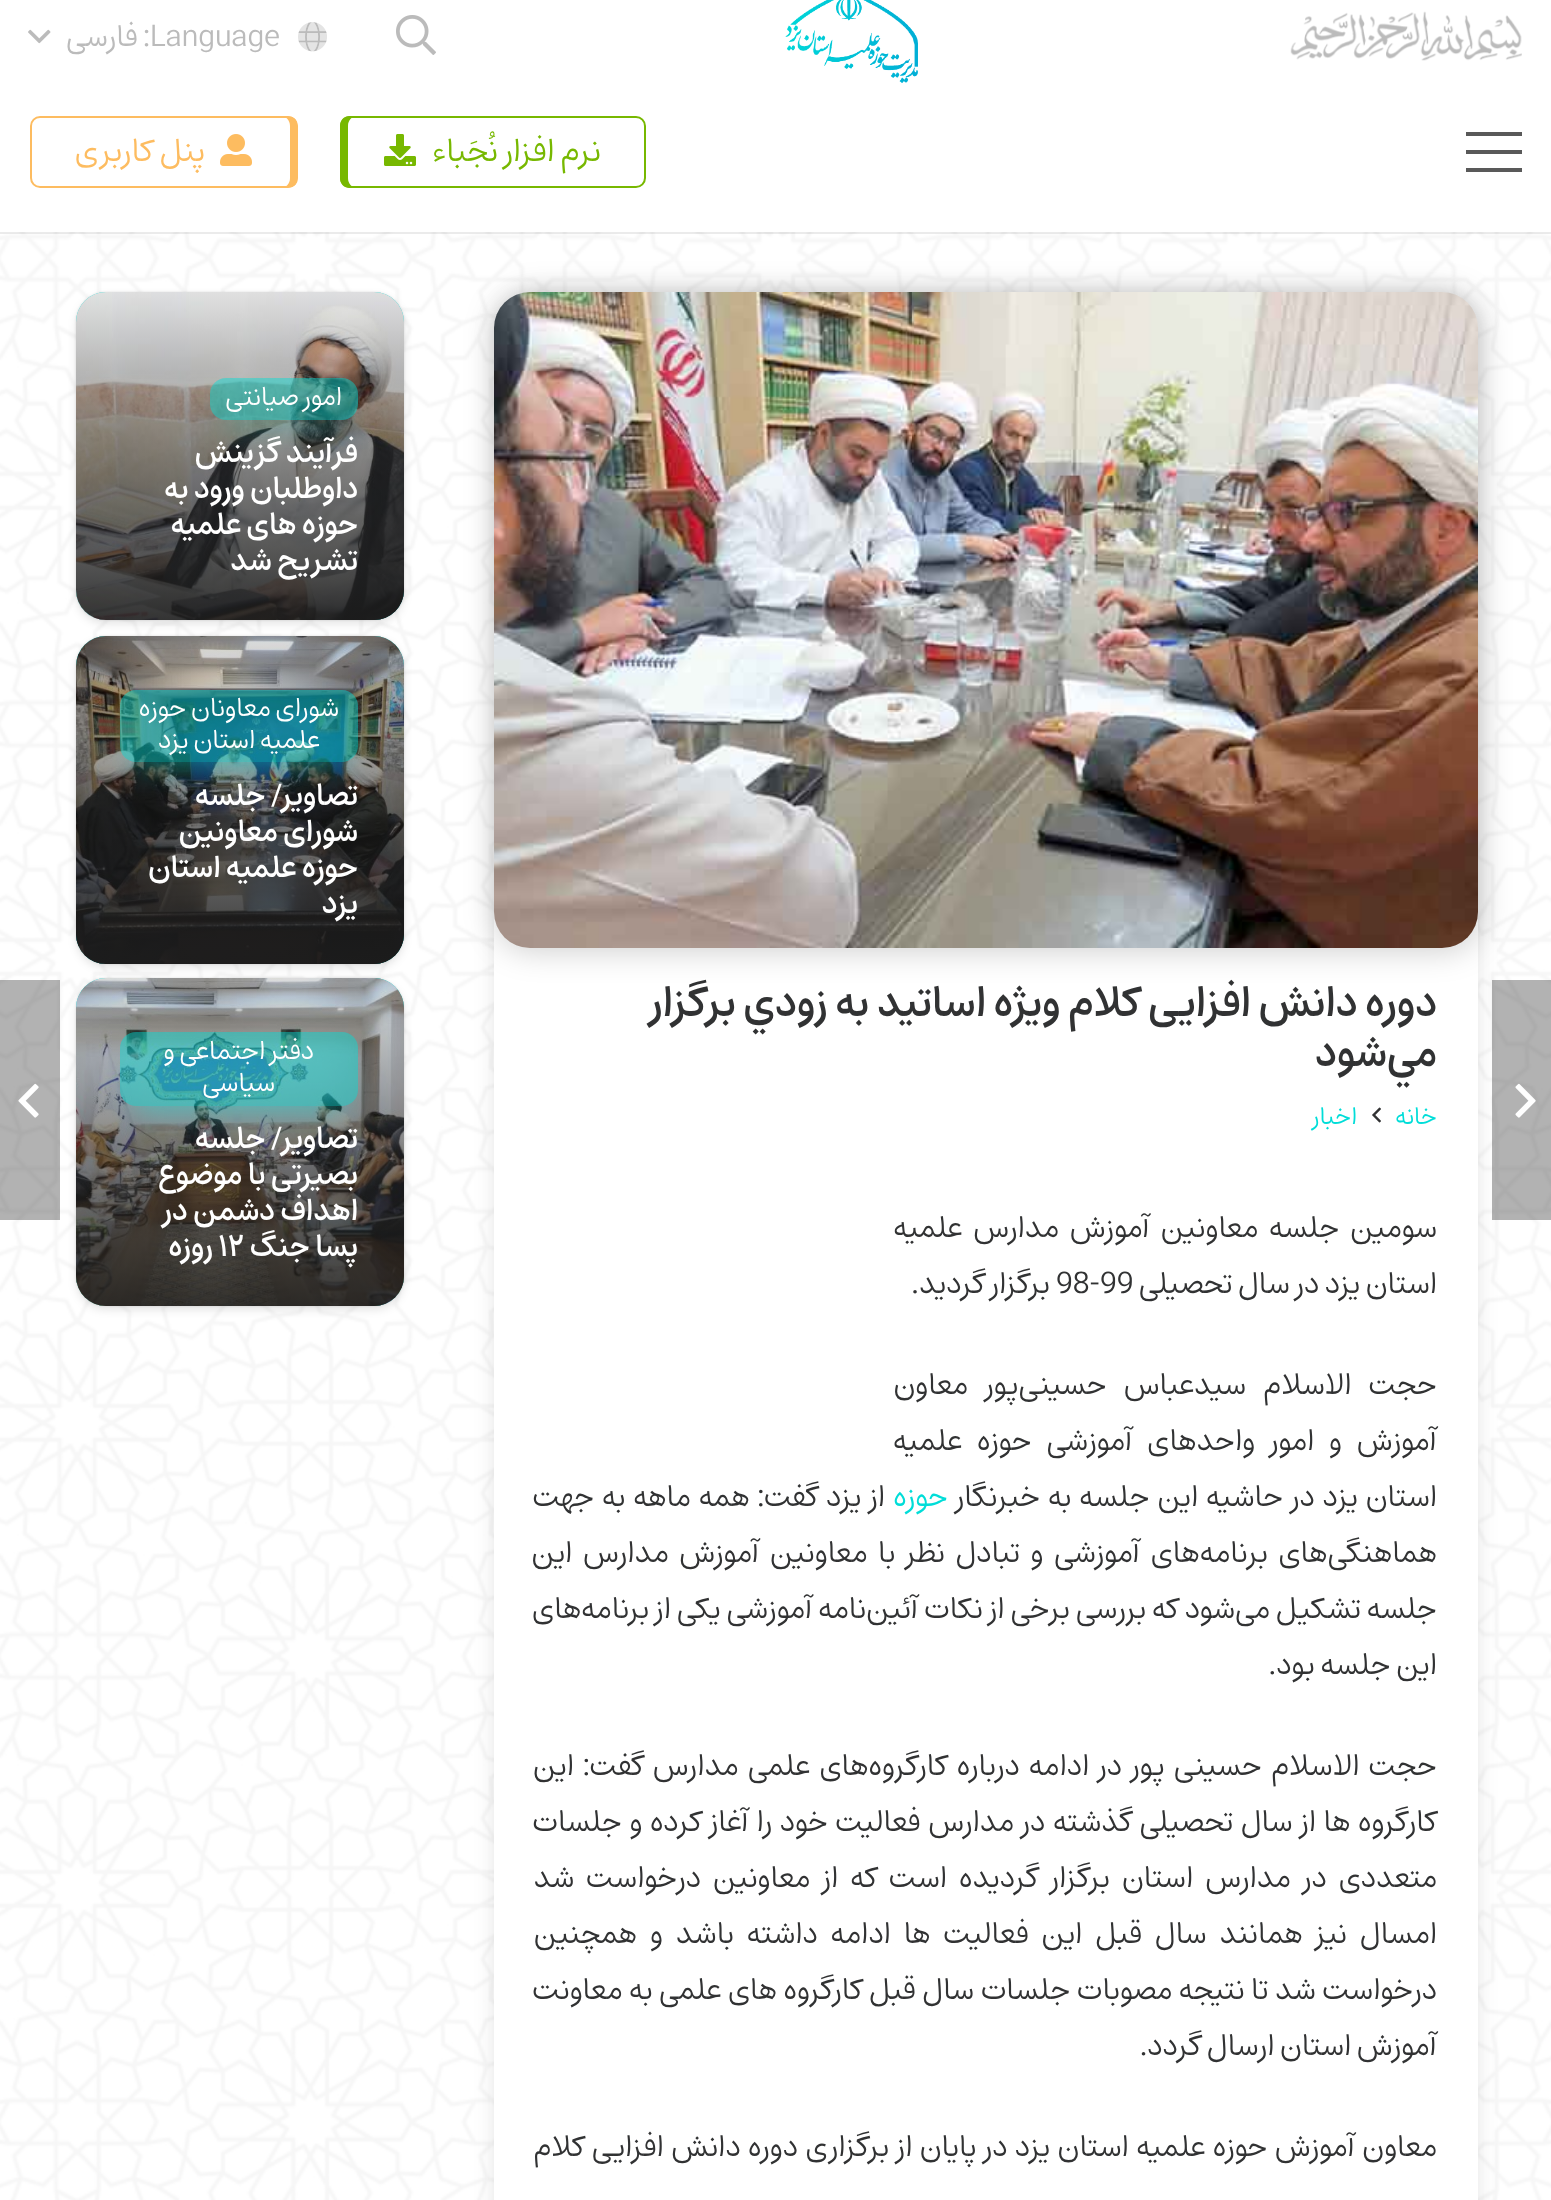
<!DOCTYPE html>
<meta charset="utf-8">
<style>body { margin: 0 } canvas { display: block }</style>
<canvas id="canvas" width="1551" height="2200"></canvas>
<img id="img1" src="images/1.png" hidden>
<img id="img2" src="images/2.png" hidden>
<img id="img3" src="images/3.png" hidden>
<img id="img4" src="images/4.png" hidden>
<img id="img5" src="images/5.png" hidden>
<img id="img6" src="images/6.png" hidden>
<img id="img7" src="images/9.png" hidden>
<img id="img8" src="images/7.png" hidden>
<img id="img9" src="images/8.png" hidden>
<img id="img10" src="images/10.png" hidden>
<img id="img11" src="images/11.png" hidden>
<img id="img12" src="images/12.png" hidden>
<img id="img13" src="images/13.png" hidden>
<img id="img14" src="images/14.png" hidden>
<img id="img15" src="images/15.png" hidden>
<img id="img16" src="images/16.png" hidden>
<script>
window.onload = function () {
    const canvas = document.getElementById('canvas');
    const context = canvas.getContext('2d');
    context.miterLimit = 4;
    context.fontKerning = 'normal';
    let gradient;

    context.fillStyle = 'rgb(255, 255, 255)';
    context.fillRect(0, 0, 1551, 2200);
    context.drawImage(document.getElementById('img1'), 1290, 11, 232, 50);
    context.drawImage(document.getElementById('img2'), 785, 0, 133, 83);
    context.drawImage(document.getElementById('img3'), 396, 15, 40, 40);
    context.drawImage(document.getElementById('img4'), 298, 22, 29, 30);
    context.drawImage(document.getElementById('img5'), 298, 22, 29, 30);
    context.drawImage(document.getElementById('img6'), 28, 29, 23, 15);
    context.drawImage(document.getElementById('img7'), 0, 232, 1551, 1968);
    context.fillStyle = 'rgba(0, 0, 0, 0.08)';
    context.fillRect(0, 232, 1551, 2);
    context.fillStyle = 'rgb(89, 89, 89)';
    context.fillRect(1466, 150, 56, 4);
    context.fillRect(1466, 132, 56, 4);
    context.fillRect(1466, 168, 56, 4);
    context.fillStyle = 'rgb(119, 184, 0)';
    context.beginPath();
    context.moveTo(350, 116);
    context.bezierCurveTo(344, 116, 340, 120, 340, 126);
    context.lineTo(340, 178);
    context.bezierCurveTo(340, 184, 344, 188, 350, 188);
    context.lineTo(358, 188);
    context.bezierCurveTo(352, 188, 348, 184, 348, 178);
    context.lineTo(348, 126);
    context.bezierCurveTo(348, 120, 352, 116, 358, 116);
    context.closePath();
    context.fill();
    context.drawImage(document.getElementById('img8'), 384, 134, 32, 32);
    context.beginPath();
    context.roundRect(341, 117, 304, 70, 9);
    context.strokeStyle = 'rgb(119, 184, 0)';
    context.lineWidth = 2;
    context.stroke();
    context.fillStyle = 'rgb(253, 188, 96)';
    context.beginPath();
    context.moveTo(280, 188);
    context.bezierCurveTo(296, 188, 298, 187, 298, 169);
    context.lineTo(298, 135);
    context.bezierCurveTo(298, 117, 296, 116, 280, 116);
    context.bezierCurveTo(286, 116, 290, 120, 290, 126);
    context.lineTo(290, 178);
    context.bezierCurveTo(290, 184, 286, 188, 280, 188);
    context.closePath();
    context.fill();
    context.drawImage(document.getElementById('img9'), 220, 134, 32, 32);
    context.beginPath();
    context.roundRect(31, 117, 266, 70, 9);
    context.strokeStyle = 'rgb(253, 188, 96)';
    context.stroke();
    context.fillStyle = 'rgba(0, 0, 0, 0.1)';
    context.filter = 'blur(4.5px)';
    context.beginPath();
    context.roundRect(76, 296, 328, 328, 30);
    context.fill();
    context.filter = 'none';
    context.filter = 'blur(1px)';
    context.beginPath();
    context.roundRect(76, 292, 328, 328, 30);
    context.fill();
    context.filter = 'none';
    context.fillStyle = 'rgb(0, 221, 216)';
    context.beginPath();
    context.roundRect(76, 292, 328, 328, 30);
    context.fill();
    context.drawImage(document.getElementById('img10'), 76, 292, 328, 328);
    gradient = context.createLinearGradient(240, 258, 240, 620);
    gradient.addColorStop(0, 'rgba(30, 30, 30, 0)');
    gradient.addColorStop(1, 'rgba(30, 30, 30, 0.9)');
    context.fillStyle = gradient;
    context.beginPath();
    context.roundRect(76, 292, 328, 328, 30);
    context.fill();
    context.save();
    context.beginPath();
    context.moveTo(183, 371);
    context.lineTo(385, 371);
    context.lineTo(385, 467);
    context.lineTo(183, 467);
    context.closePath();
    context.moveTo(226, 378);
    context.lineTo(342, 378);
    context.bezierCurveTo(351, 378, 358, 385, 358, 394);
    context.lineTo(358, 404);
    context.bezierCurveTo(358, 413, 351, 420, 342, 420);
    context.lineTo(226, 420);
    context.bezierCurveTo(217, 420, 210, 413, 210, 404);
    context.lineTo(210, 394);
    context.bezierCurveTo(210, 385, 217, 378, 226, 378);
    context.closePath();
    context.clip('evenodd');
    context.fillStyle = 'rgba(0, 221, 216, 0.48)';
    context.filter = 'blur(14px)';
    context.beginPath();
    context.rect(226, 414, 116, 10);
    context.fill();
    context.filter = 'none';
    context.restore();
    context.fillStyle = 'rgba(0, 221, 216, 0.45)';
    context.beginPath();
    context.roundRect(210, 378, 148, 42, 16);
    context.fill();
    context.fillStyle = 'rgba(0, 0, 0, 0.1)';
    context.filter = 'blur(4.5px)';
    context.beginPath();
    context.roundRect(76, 640, 328, 328, 30);
    context.fill();
    context.filter = 'none';
    context.filter = 'blur(1px)';
    context.beginPath();
    context.roundRect(76, 636, 328, 328, 30);
    context.fill();
    context.filter = 'none';
    context.fillStyle = 'rgb(0, 221, 216)';
    context.beginPath();
    context.roundRect(76, 636, 328, 328, 30);
    context.fill();
    context.drawImage(document.getElementById('img11'), 76, 636, 328, 328);
    gradient = context.createLinearGradient(240, 570, 240, 964);
    gradient.addColorStop(0, 'rgba(30, 30, 30, 0)');
    gradient.addColorStop(1, 'rgba(30, 30, 30, 0.9)');
    context.fillStyle = gradient;
    context.beginPath();
    context.roundRect(76, 636, 328, 328, 30);
    context.fill();
    context.save();
    context.beginPath();
    context.moveTo(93, 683);
    context.lineTo(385, 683);
    context.lineTo(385, 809);
    context.lineTo(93, 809);
    context.closePath();
    context.moveTo(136, 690);
    context.lineTo(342, 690);
    context.bezierCurveTo(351, 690, 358, 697, 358, 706);
    context.lineTo(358, 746);
    context.bezierCurveTo(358, 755, 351, 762, 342, 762);
    context.lineTo(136, 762);
    context.bezierCurveTo(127, 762, 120, 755, 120, 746);
    context.lineTo(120, 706);
    context.bezierCurveTo(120, 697, 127, 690, 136, 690);
    context.closePath();
    context.clip('evenodd');
    context.fillStyle = 'rgba(0, 221, 216, 0.48)';
    context.filter = 'blur(14px)';
    context.beginPath();
    context.rect(136, 726, 206, 40);
    context.fill();
    context.filter = 'none';
    context.restore();
    context.fillStyle = 'rgba(0, 221, 216, 0.45)';
    context.beginPath();
    context.roundRect(120, 690, 238, 72, 16);
    context.fill();
    context.fillStyle = 'rgba(0, 0, 0, 0.1)';
    context.filter = 'blur(4.5px)';
    context.beginPath();
    context.roundRect(76, 982, 328, 328, 30);
    context.fill();
    context.filter = 'none';
    context.filter = 'blur(1px)';
    context.beginPath();
    context.roundRect(76, 978, 328, 328, 30);
    context.fill();
    context.filter = 'none';
    context.fillStyle = 'rgb(0, 221, 216)';
    context.beginPath();
    context.roundRect(76, 978, 328, 328, 30);
    context.fill();
    context.drawImage(document.getElementById('img12'), 76, 978, 328, 328);
    gradient = context.createLinearGradient(240, 912, 240, 1306);
    gradient.addColorStop(0, 'rgba(30, 30, 30, 0)');
    gradient.addColorStop(1, 'rgba(30, 30, 30, 0.9)');
    context.fillStyle = gradient;
    context.beginPath();
    context.roundRect(76, 978, 328, 328, 30);
    context.fill();
    context.save();
    context.beginPath();
    context.moveTo(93, 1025);
    context.lineTo(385, 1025);
    context.lineTo(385, 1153);
    context.lineTo(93, 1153);
    context.closePath();
    context.moveTo(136, 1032);
    context.lineTo(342, 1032);
    context.bezierCurveTo(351, 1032, 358, 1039, 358, 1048);
    context.lineTo(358, 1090);
    context.bezierCurveTo(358, 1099, 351, 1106, 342, 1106);
    context.lineTo(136, 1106);
    context.bezierCurveTo(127, 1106, 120, 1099, 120, 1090);
    context.lineTo(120, 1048);
    context.bezierCurveTo(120, 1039, 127, 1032, 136, 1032);
    context.closePath();
    context.clip('evenodd');
    context.fillStyle = 'rgba(0, 221, 216, 0.48)';
    context.filter = 'blur(14px)';
    context.beginPath();
    context.rect(136, 1068, 206, 42);
    context.fill();
    context.filter = 'none';
    context.restore();
    context.fillStyle = 'rgba(0, 221, 216, 0.45)';
    context.beginPath();
    context.roundRect(120, 1032, 238, 74, 16);
    context.fill();
    context.fillStyle = 'rgba(51, 51, 51, 0.13)';
    context.filter = 'blur(10px)';
    context.beginPath();
    context.roundRect(494, 292, 984, 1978, 40);
    context.fill();
    context.filter = 'none';
    context.fillStyle = 'rgb(255, 255, 255)';
    context.beginPath();
    context.roundRect(494, 292, 984, 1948, 40);
    context.fill();
    context.fillStyle = 'rgba(0, 0, 0, 0.18)';
    context.filter = 'blur(15px)';
    context.beginPath();
    context.roundRect(494, 292, 988, 660, 38);
    context.fill();
    context.filter = 'none';
    context.drawImage(document.getElementById('img13'), 494, 292, 984, 656);
    context.fillStyle = 'rgba(0, 0, 0, 0.3)';
    context.fillRect(1492, 980, 59, 240);
    context.drawImage(document.getElementById('img14'), 1515, 1083, 21, 35);
    context.fillRect(0, 980, 60, 240);
    context.drawImage(document.getElementById('img15'), 18, 1083, 21, 35);
    context.drawImage(document.getElementById('img16'), 1372, 1107, 9, 16);
    context.font = '30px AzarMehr';
    context.fillStyle = 'rgb(187, 187, 187)';
    context.fillText('Language', 150, 46);
    context.direction = 'rtl';
    context.fillText(': فارسی', 150, 46);
    context.font = '32px AzarMehr';
    context.fillStyle = 'rgb(119, 184, 0)';
    context.fillText('نرم افزار نُجَباء', 601, 161);
    context.fillStyle = 'rgb(253, 188, 96)';
    context.fillText('پنل کاربری', 205, 161);
    context.font = '26px AzarMehr';
    context.fillStyle = 'rgb(255, 255, 255)';
    context.fillText('امور صیانتی', 342, 405);
    context.font = '600 30px AzarMehr';
    context.fillText('فرآیند گزینش', 358, 462);
    context.fillText('داوطلبان ورود به', 358, 498);
    context.fillText('حوزه های علمیه', 358, 534);
    context.fillText('تشریح شد', 358, 570);
    context.font = '26px AzarMehr';
    context.fillText('شورای معاونان حوزه', 339, 716);
    context.fillText('علمیه استان یزد', 320, 748);
    context.font = '600 30px AzarMehr';
    context.fillText('تصاویر/ جلسه', 358, 805);
    context.fillText('شورای معاونین', 358, 841);
    context.fillText('حوزه علمیه استان', 358, 877);
    context.fillText('یزد', 358, 913);
    context.font = '26px AzarMehr';
    context.fillText('دفتر اجتماعی و', 314, 1059);
    context.fillText('سیاسی', 275, 1091);
    context.font = '600 30px AzarMehr';
    context.fillText('تصاویر/ جلسه', 358, 1148);
    context.fillText('بصیرتی با موضوع', 358, 1184);
    context.fillText('اهداف دشمن در', 358, 1220);
    context.fillText('پسا جنگ', 358, 1256);
    context.direction = 'ltr';
    context.fillText('۱۲', 218, 1256);
    context.direction = 'rtl';
    context.fillText('روزه', 213, 1256);
    context.font = '600 42px AzarMehr';
    context.fillStyle = 'rgb(49, 50, 51)';
    context.fillText('دوره دانش افزایی کلام ویژه اساتید به زودي برگزار', 1437, 1016);
    context.fillText('مي‌شود', 1437, 1066);
    context.font = '24px AzarMehr';
    context.fillStyle = 'rgb(0, 221, 216)';
    context.fillText('خانه', 1437, 1124);
    context.fillText('اخبار', 1357, 1124);
    context.wordSpacing = '5.25px';
    context.font = '30px AzarMehr';
    context.fillStyle = 'rgb(49, 50, 51)';
    context.fillText('سومین جلسه معاونین آموزش مدارس علميه', 1437, 1237);
    context.wordSpacing = '0px';
    context.fillText('استان یزد در سال تحصیلی', 1437, 1293);
    context.direction = 'ltr';
    context.fillText('98-99', 1056, 1293);
    context.direction = 'rtl';
    context.fillText('برگزار گردید.', 1050, 1293);
    context.wordSpacing = '11.5px';
    context.fillText('حجت الاسلام سیدعباس حسینی‌پور معاون', 1437, 1394);
    context.wordSpacing = '9.25px';
    context.fillText('آموزش و امور واحدهای آموزشی حوزه علمیه', 1437, 1450);
    context.wordSpacing = '2.25px';
    context.fillText('استان یزد در حاشیه این جلسه به خبرنگار', 1437, 1506);
    context.wordSpacing = '0px';
    context.fillStyle = 'rgb(0, 221, 216)';
    context.fillText('حوزه', 948, 1506);
    context.wordSpacing = '2.25px';
    context.fillStyle = 'rgb(49, 50, 51)';
    context.fillText('از یزد گفت: همه ماهه به جهت', 885, 1506);
    context.wordSpacing = '5px';
    context.fillText('هماهنگی‌های برنامه‌های آموزشی و تبادل نظر با معاونین آموزش مدارس این', 1437, 1562);
    context.wordSpacing = '0.25px';
    context.fillText('جلسه تشکیل می‌شود كه بررسی برخی از نکات آئین‌نامه آموزشی یکی از برنامه‌های', 1437, 1618);
    context.wordSpacing = '0px';
    context.fillText('این جلسه بود.', 1437, 1674);
    context.wordSpacing = '3.6px';
    context.fillText('حجت الاسلام حسینی پور در ادامه درباره کارگروه‌های علمی مدارس گفت: این', 1437, 1775);
    context.wordSpacing = '2px';
    context.fillText('کارگروه ها از سال تحصیلی گذشته در مدارس فعالیت خود را آغاز کرده و جلسات', 1437, 1831);
    context.wordSpacing = '6.4px';
    context.fillText('متعددی در مدارس استان برگزار گردیده است که از معاونین درخواست شد', 1437, 1887);
    context.wordSpacing = '7.25px';
    context.fillText('امسال نیز همانند سال قبل این فعالیت ها ادامه داشته باشد و همچنین', 1437, 1943);
    context.wordSpacing = '0.9px';
    context.fillText('درخواست شد تا نتیجه مصوبات جلسات سال قبل کارگروه های علمی به معاونت', 1437, 1999);
    context.wordSpacing = '0px';
    context.fillText('آموزش استان ارسال گردد.', 1437, 2055);
    context.wordSpacing = '1.8px';
    context.fillText('معاون آموزش حوزه علمیه استان یزد در پایان از برگزاری دوره دانش افزایی کلام', 1437, 2156);
};
</script>
